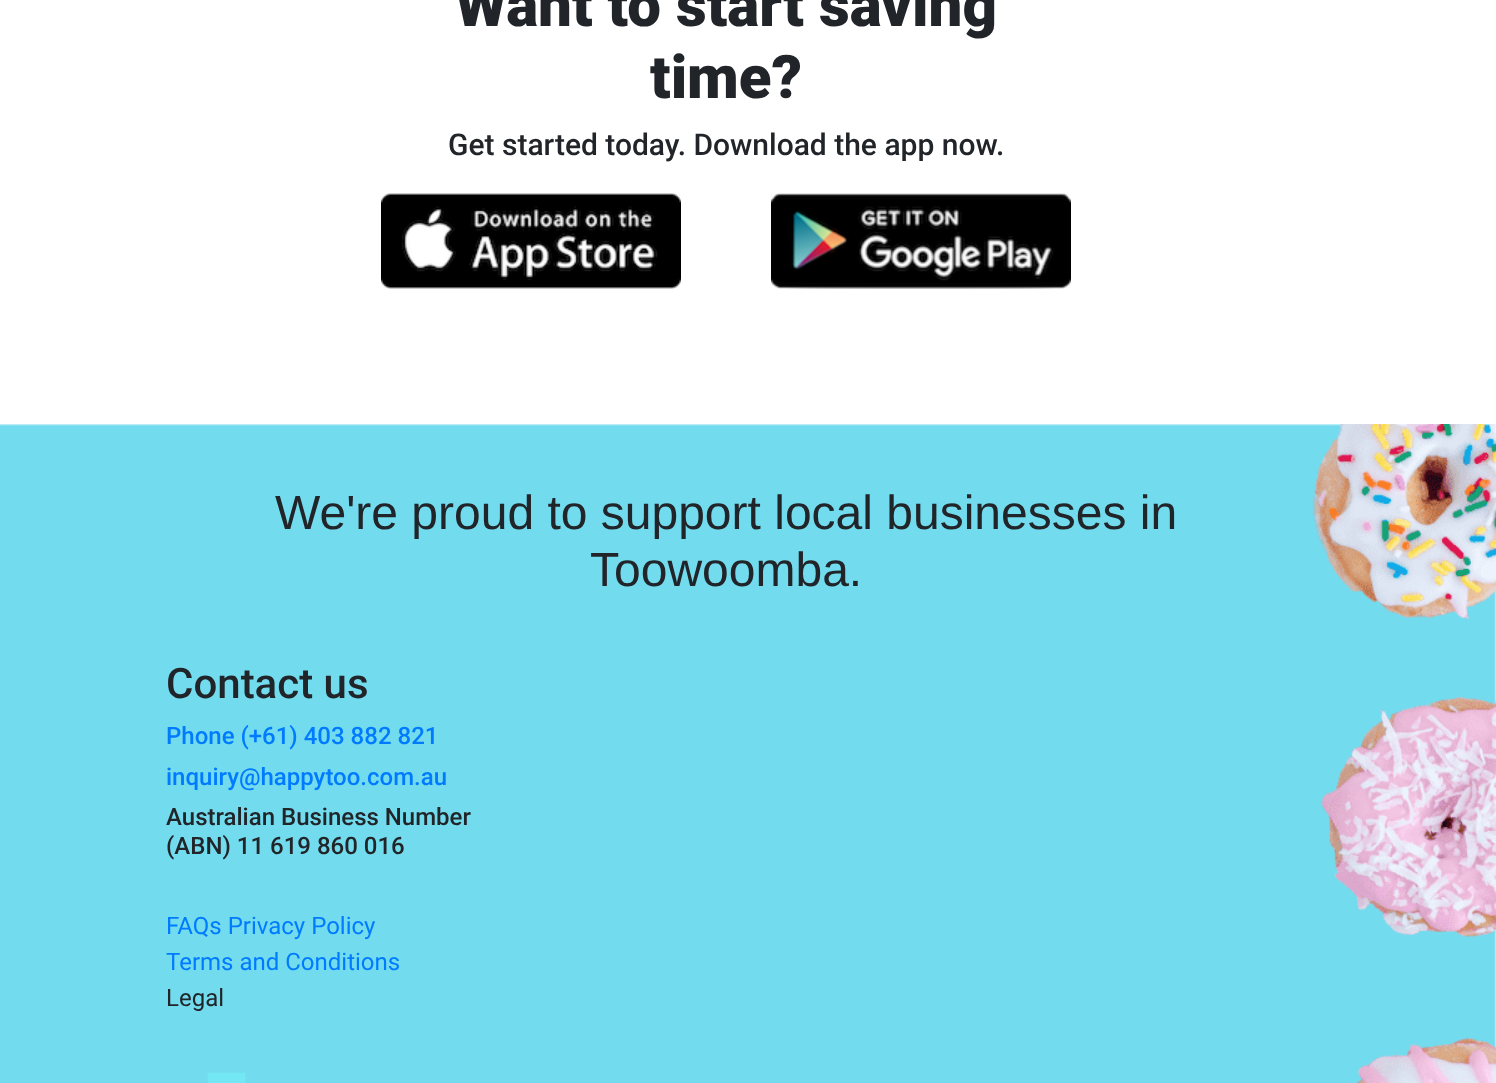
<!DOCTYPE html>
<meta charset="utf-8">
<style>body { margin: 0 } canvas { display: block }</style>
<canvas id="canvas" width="1496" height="1083"></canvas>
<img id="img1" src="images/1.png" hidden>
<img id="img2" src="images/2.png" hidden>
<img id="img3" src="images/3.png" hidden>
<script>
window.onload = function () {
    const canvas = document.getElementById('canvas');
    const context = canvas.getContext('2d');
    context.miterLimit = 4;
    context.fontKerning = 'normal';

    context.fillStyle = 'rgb(255, 255, 255)';
    context.fillRect(0, 0, 1496, 1083);
    context.drawImage(document.getElementById('img1'), 381, 193, 300, 96);
    context.drawImage(document.getElementById('img2'), 771, 193, 300, 96);
    context.drawImage(document.getElementById('img3'), 0, 424, 1496, 659);
    context.font = '900 60px Roboto';
    context.fillStyle = 'rgb(33, 37, 41)';
    context.fillText('Want to start saving', 455, 26);
    context.fillText('time?', 650, 98);
    context.font = '500 30px Roboto';
    context.fillText('Get started today. Download the app now.', 448, 155);
    context.font = '48px Liberation Sans';
    context.fillText('We\'re proud to support local businesses in', 275, 529);
    context.fillText('Toowoomba.', 590, 586);
    context.font = '500 42px Roboto';
    context.fillText('Contact us', 166, 698);
    context.font = '500 24px Roboto';
    context.fillStyle = 'rgb(0, 123, 255)';
    context.fillText('Phone (+61) 403 882 821', 166, 744);
    context.fillText('inquiry@happytoo.com.au', 166, 785);
    context.fillStyle = 'rgb(33, 37, 41)';
    context.fillText('Australian Business Number', 166, 825);
    context.fillText('(ABN) 11 619 860 016', 166, 854);
    context.font = '24px Roboto';
    context.fillStyle = 'rgb(0, 123, 255)';
    context.fillText('FAQs Privacy Policy', 166, 934);
    context.fillText('Terms and Conditions', 166, 970);
    context.fillStyle = 'rgb(33, 37, 41)';
    context.fillText('Legal', 166, 1006);
};
</script>
